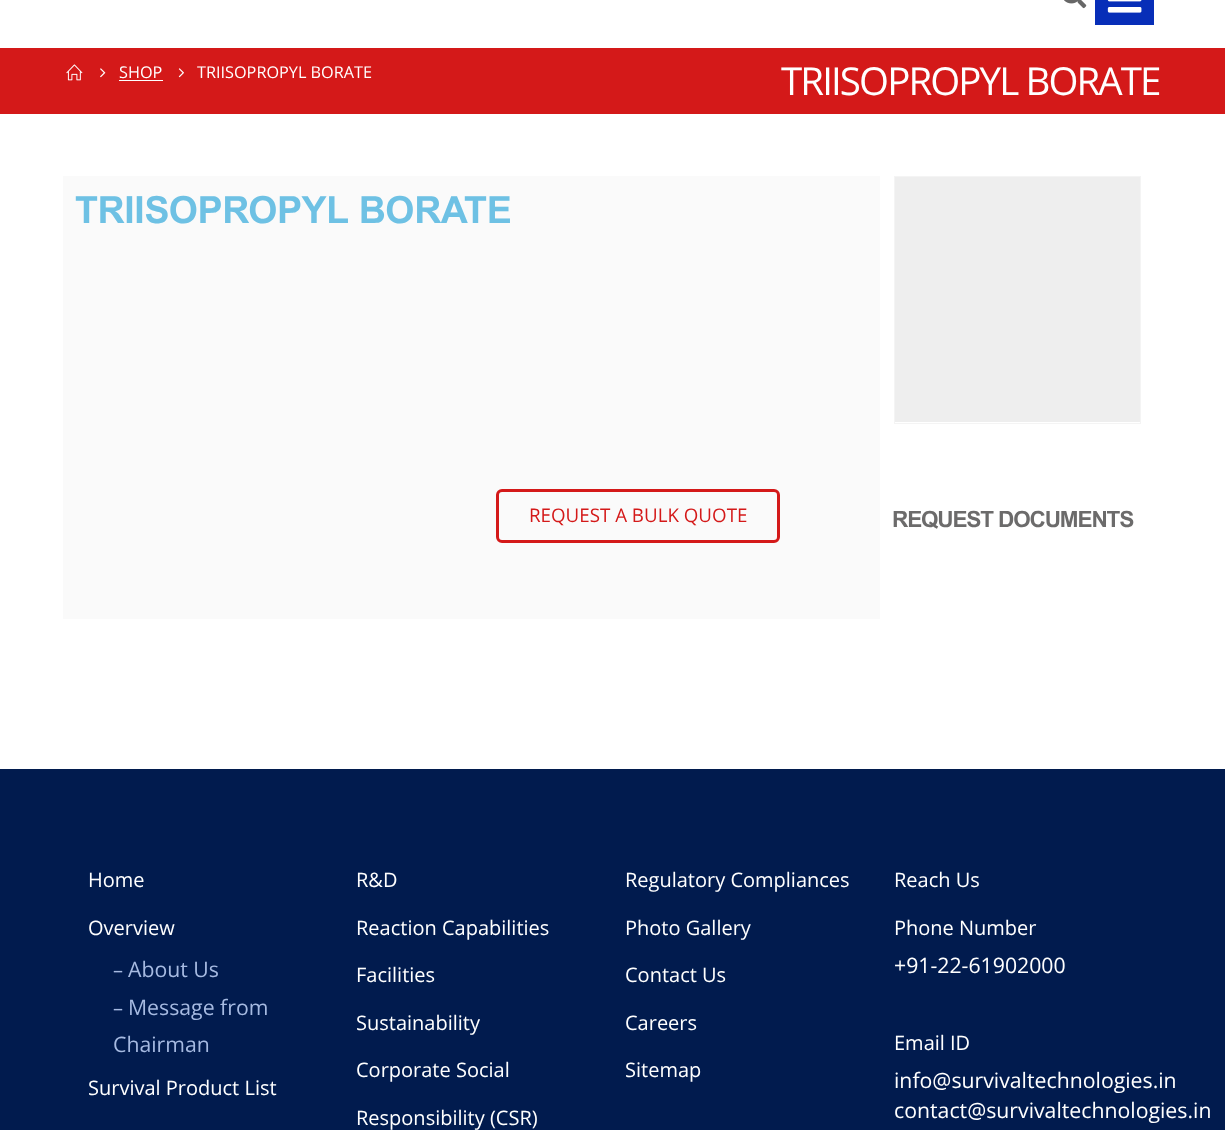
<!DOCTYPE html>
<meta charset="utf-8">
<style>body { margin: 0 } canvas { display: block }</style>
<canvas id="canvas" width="1225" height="1130"></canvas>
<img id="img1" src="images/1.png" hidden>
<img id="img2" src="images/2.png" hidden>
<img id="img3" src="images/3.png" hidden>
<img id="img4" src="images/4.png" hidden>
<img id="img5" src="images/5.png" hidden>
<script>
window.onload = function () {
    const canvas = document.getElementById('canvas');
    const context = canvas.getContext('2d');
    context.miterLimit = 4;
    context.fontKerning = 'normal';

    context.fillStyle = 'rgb(255, 255, 255)';
    context.fillRect(0, 0, 1225, 1130);
    context.drawImage(document.getElementById('img1'), 1064, 0, 23, 9);
    context.fillStyle = 'rgb(7, 46, 184)';
    context.fillRect(1095, 0, 59, 25);
    context.drawImage(document.getElementById('img2'), 1107, 0, 35, 13);
    context.fillStyle = 'rgb(212, 25, 25)';
    context.fillRect(0, 48, 1225, 66);
    context.drawImage(document.getElementById('img3'), 66, 64, 17, 17);
    context.drawImage(document.getElementById('img4'), 100, 68, 6, 10);
    context.fillStyle = 'rgb(255, 255, 255)';
    context.fillRect(119, 80, 44, 1);
    context.drawImage(document.getElementById('img5'), 178, 68, 6, 10);
    context.fillStyle = 'rgb(250, 250, 250)';
    context.fillRect(63, 176, 817, 443);
    context.beginPath();
    context.roundRect(497.5, 490.5, 281, 51, 4.5);
    context.strokeStyle = 'rgb(212, 25, 25)';
    context.lineWidth = 3;
    context.stroke();
    context.strokeStyle = 'rgb(244, 244, 244)';
    context.lineWidth = 1;
    context.strokeRect(894.5, 176.5, 246, 247);
    context.fillStyle = 'rgb(238, 238, 238)';
    context.fillRect(895, 177, 245, 245);
    context.fillStyle = 'rgb(1, 27, 78)';
    context.fillRect(0, 769, 1225, 361);
    context.font = '16.25px Open Sans';
    context.fillStyle = 'rgb(255, 255, 255)';
    context.fillText('SHOP', 119, 78);
    context.fillText('TRIISOPROPYL BORATE', 197, 78);
    context.letterSpacing = '-1.9px';
    context.font = '38.5px Open Sans';
    context.fillText('TRIISOPROPYL BORATE', 781, 95);
    context.letterSpacing = '-0.4px';
    context.font = 'bold 37.5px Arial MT';
    context.fillStyle = 'rgb(110, 193, 228)';
    context.fillText('TRIISOPROPYL BORATE', 75, 223);
    context.letterSpacing = '0px';
    context.font = '18.75px Open Sans';
    context.fillStyle = 'rgb(212, 25, 25)';
    context.fillText('REQUEST A BULK QUOTE', 529, 522);
    context.letterSpacing = '-1.1px';
    context.font = 'bold 22.5px Arial MT';
    context.fillStyle = 'rgb(108, 107, 107)';
    context.fillText('REQUEST DOCUMENTS', 892, 527);
    context.letterSpacing = '0px';
    context.font = '20px Open Sans';
    context.fillStyle = 'rgb(255, 255, 255)';
    context.fillText('Home', 88, 887);
    context.fillText('Overview', 88, 935);
    context.fillStyle = 'rgb(166, 186, 225)';
    context.fillText('–', 113, 977);
    context.font = '21.25px Open Sans';
    context.fillText('About Us', 128, 977);
    context.font = '20px Open Sans';
    context.fillText('–', 113, 1015);
    context.font = '21.25px Open Sans';
    context.fillText('Message from', 128, 1015);
    context.fillText('Chairman', 113, 1052);
    context.font = '20px Open Sans';
    context.fillStyle = 'rgb(255, 255, 255)';
    context.fillText('Survival Product List', 88, 1095);
    context.fillText('R&D', 356, 887);
    context.fillText('Reaction Capabilities', 356, 935);
    context.fillText('Facilities', 356, 982);
    context.fillText('Sustainability', 356, 1030);
    context.fillText('Corporate Social', 356, 1077);
    context.fillText('Responsibility (CSR)', 356, 1125);
    context.fillText('Regulatory Compliances', 625, 887);
    context.fillText('Photo Gallery', 625, 935);
    context.fillText('Contact Us', 625, 982);
    context.fillText('Careers', 625, 1030);
    context.fillText('Sitemap', 625, 1077);
    context.fillText('Reach Us', 894, 887);
    context.fillText('Phone Number', 894, 935);
    context.font = '21.25px Open Sans';
    context.fillText('+91-22-61902000', 894, 973);
    context.font = '20px Open Sans';
    context.fillText('Email ID', 894, 1050);
    context.font = '21.25px Open Sans';
    context.fillText('info@survivaltechnologies.in', 894, 1088);
    context.fillText('contact@survivaltechnologies.in', 894, 1118);
};
</script>
